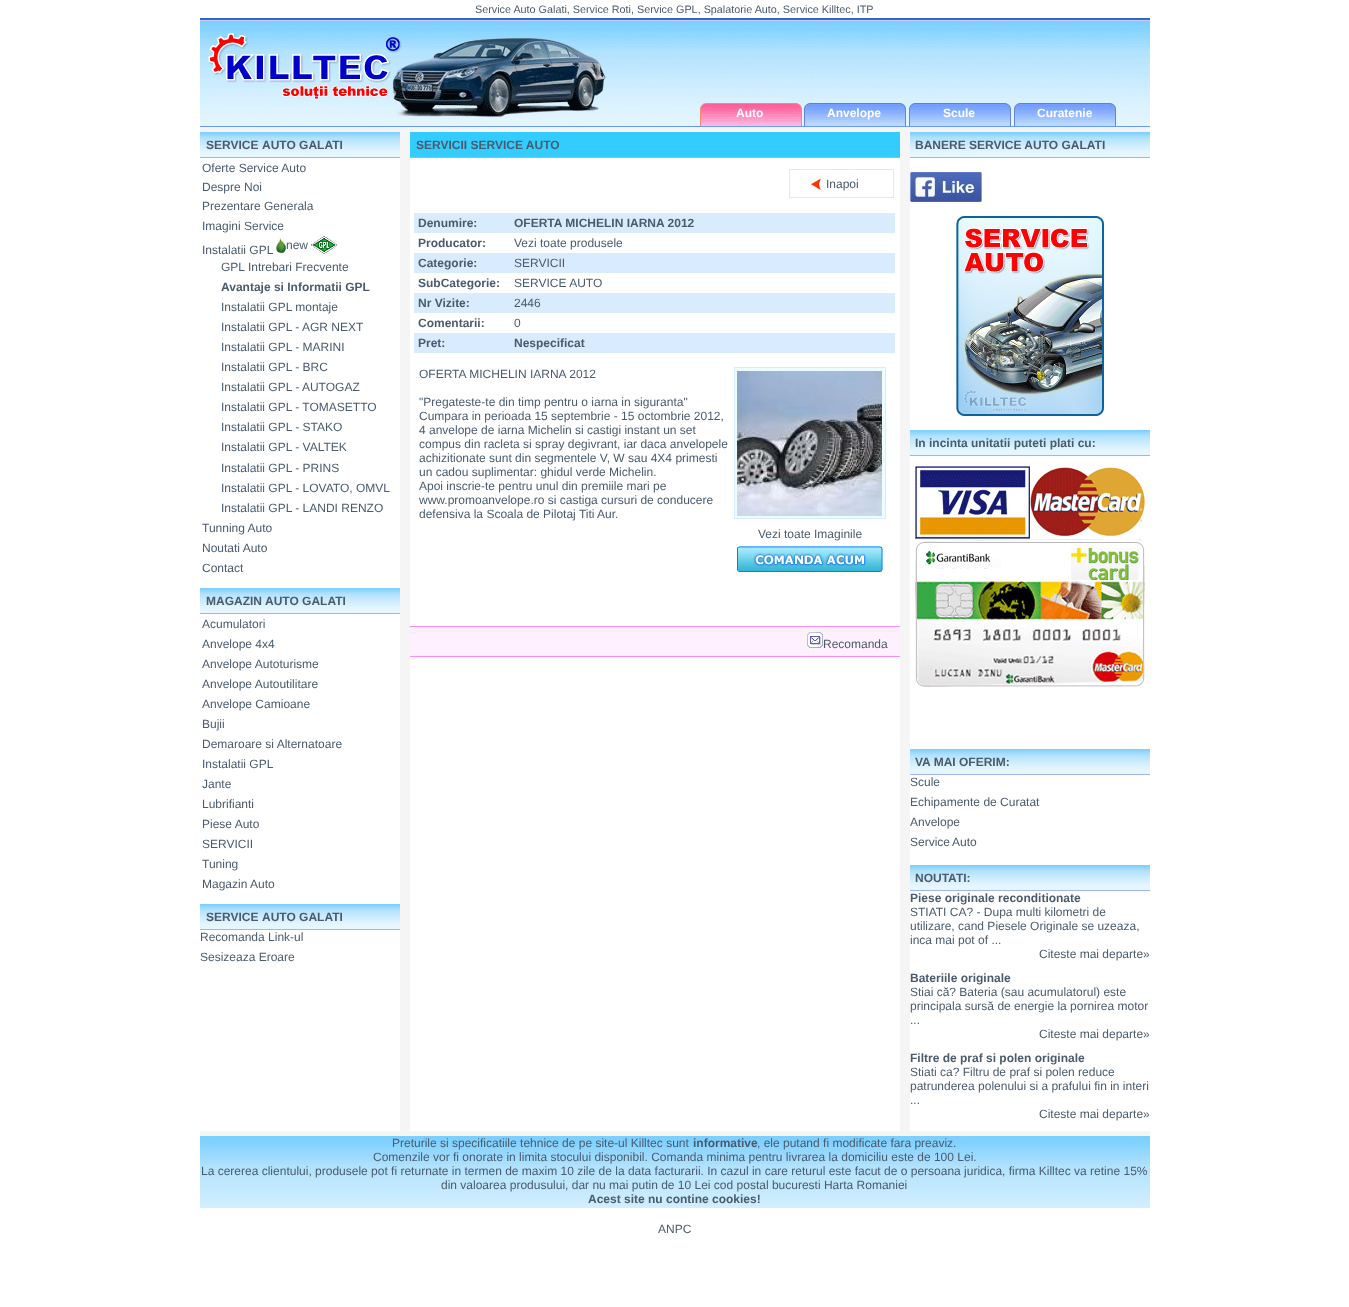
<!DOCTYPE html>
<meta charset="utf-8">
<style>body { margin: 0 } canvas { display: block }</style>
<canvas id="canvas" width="1349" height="1307"></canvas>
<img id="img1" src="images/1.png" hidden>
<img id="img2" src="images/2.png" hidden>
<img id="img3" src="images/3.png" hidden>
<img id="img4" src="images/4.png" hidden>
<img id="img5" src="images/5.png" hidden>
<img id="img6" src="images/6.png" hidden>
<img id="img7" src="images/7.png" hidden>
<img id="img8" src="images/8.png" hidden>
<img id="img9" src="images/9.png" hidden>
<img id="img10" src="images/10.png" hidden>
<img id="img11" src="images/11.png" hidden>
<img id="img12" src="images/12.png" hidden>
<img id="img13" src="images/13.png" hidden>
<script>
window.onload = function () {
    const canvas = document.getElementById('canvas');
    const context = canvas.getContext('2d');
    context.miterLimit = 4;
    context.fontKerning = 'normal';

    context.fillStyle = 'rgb(255, 255, 255)';
    context.fillRect(0, 0, 1349, 1307);
    context.fillStyle = 'rgb(51, 102, 204)';
    context.fillRect(200, 18, 950, 2);
    context.fillStyle = 'rgb(204, 204, 255)';
    context.fillRect(200, 20, 950, 1);
    context.drawImage(document.getElementById('img1'), 200, 21, 950, 105);
    context.fillStyle = 'rgb(102, 153, 255)';
    context.fillRect(200, 126, 950, 1);
    context.fillStyle = 'rgb(245, 245, 245)';
    context.fillRect(200, 127, 950, 5);
    context.fillRect(400, 132, 510, 999);
    context.drawImage(document.getElementById('img2'), 200, 132, 200, 25);
    context.fillStyle = 'rgb(162, 179, 244)';
    context.fillRect(200, 157, 200, 1);
    context.drawImage(document.getElementById('img3'), 276, 238, 10, 16);
    context.drawImage(document.getElementById('img4'), 311, 236, 26, 18);
    context.drawImage(document.getElementById('img2'), 200, 588, 200, 25);
    context.fillRect(200, 613, 200, 1);
    context.drawImage(document.getElementById('img2'), 200, 904, 200, 25);
    context.fillRect(200, 929, 200, 1);
    context.fillStyle = 'rgb(255, 255, 255)';
    context.fillRect(410, 158, 490, 973);
    context.fillStyle = 'rgb(51, 204, 255)';
    context.fillRect(410, 132, 490, 25);
    context.fillStyle = 'rgb(162, 179, 244)';
    context.fillRect(410, 157, 490, 1);
    context.fillStyle = 'rgb(224, 230, 252)';
    context.fillRect(789, 169, 105, 29);
    context.fillStyle = 'rgb(255, 255, 255)';
    context.fillRect(790, 170, 103, 27);
    context.drawImage(document.getElementById('img5'), 811, 178, 10, 12);
    context.fillStyle = 'rgb(217, 235, 255)';
    context.fillRect(414, 213, 481, 20);
    context.fillRect(414, 253, 481, 20);
    context.fillRect(414, 293, 481, 20);
    context.fillRect(414, 333, 481, 20);
    context.fillRect(734, 367, 152, 152);
    context.fillStyle = 'rgb(236, 253, 255)';
    context.fillRect(735, 368, 150, 150);
    context.drawImage(document.getElementById('img6'), 737, 371, 145, 145);
    context.drawImage(document.getElementById('img7'), 737, 546, 146, 26);
    context.fillStyle = 'rgb(255, 138, 252)';
    context.fillRect(410, 626, 490, 1);
    context.fillStyle = 'rgb(255, 240, 255)';
    context.fillRect(410, 627, 490, 29);
    context.drawImage(document.getElementById('img8'), 807, 632, 16, 16);
    context.fillStyle = 'rgb(255, 138, 252)';
    context.fillRect(410, 656, 490, 1);
    context.drawImage(document.getElementById('img9'), 910, 132, 240, 25);
    context.fillStyle = 'rgb(162, 179, 244)';
    context.fillRect(910, 157, 240, 1);
    context.drawImage(document.getElementById('img10'), 910, 172, 72, 30);
    context.drawImage(document.getElementById('img11'), 956, 216, 148, 200);
    context.drawImage(document.getElementById('img9'), 910, 430, 240, 25);
    context.fillRect(910, 455, 240, 1);
    context.drawImage(document.getElementById('img12'), 915, 466, 230, 221);
    context.drawImage(document.getElementById('img9'), 910, 749, 240, 25);
    context.fillRect(910, 774, 240, 1);
    context.drawImage(document.getElementById('img9'), 910, 865, 240, 25);
    context.fillRect(910, 890, 240, 1);
    context.fillStyle = 'rgb(245, 245, 245)';
    context.fillRect(200, 1131, 950, 5);
    context.drawImage(document.getElementById('img13'), 200, 1136, 950, 72);
    context.font = '10.8px Liberation Sans';
    context.fillStyle = 'rgb(74, 91, 108)';
    context.fillText('Service Auto Galati, Service Roti, Service GPL, Spalatorie Auto, Service Killtec, ITP', 475, 13);
    context.font = 'bold 12px Liberation Sans';
    context.fillStyle = 'rgb(255, 255, 255)';
    context.fillText('Auto', 736, 117);
    context.fillText('Anvelope', 827, 117);
    context.fillText('Scule', 943, 117);
    context.fillText('Curatenie', 1037, 117);
    context.fillStyle = 'rgb(74, 91, 108)';
    context.fillText('SERVICE', 206, 149);
    context.fillText('AUTO GALATI', 262, 149);
    context.font = '12px Liberation Sans';
    context.fillText('Oferte Service Auto', 202, 172);
    context.fillText('Despre Noi', 202, 191);
    context.fillText('Prezentare Generala', 202, 210);
    context.fillText('Imagini Service', 202, 230);
    context.fillText('Instalatii GPL', 202, 254);
    context.fillText('new', 286, 249);
    context.fillText('GPL Intrebari Frecvente', 221, 271);
    context.font = 'bold 12px Liberation Sans';
    context.fillText('Avantaje si Informatii GPL', 221, 291);
    context.font = '12px Liberation Sans';
    context.fillText('Instalatii GPL montaje', 221, 311);
    context.fillText('Instalatii GPL - AGR NEXT', 221, 331);
    context.fillText('Instalatii GPL - MARINI', 221, 351);
    context.fillText('Instalatii GPL - BRC', 221, 371);
    context.fillText('Instalatii GPL - AUTOGAZ', 221, 391);
    context.fillText('Instalatii GPL - TOMASETTO', 221, 411);
    context.fillText('Instalatii GPL - STAKO', 221, 431);
    context.fillText('Instalatii GPL - VALTEK', 221, 451);
    context.fillText('Instalatii GPL - PRINS', 221, 472);
    context.fillText('Instalatii GPL - LOVATO, OMVL', 221, 492);
    context.fillText('Instalatii GPL - LANDI RENZO', 221, 512);
    context.fillText('Tunning Auto', 202, 532);
    context.fillText('Noutati Auto', 202, 552);
    context.fillText('Contact', 202, 572);
    context.font = 'bold 12px Liberation Sans';
    context.fillText('MAGAZIN', 206, 605);
    context.fillText('AUTO GALATI', 265, 605);
    context.font = '12px Liberation Sans';
    context.fillText('Acumulatori', 202, 628);
    context.fillText('Anvelope 4x4', 202, 648);
    context.fillText('Anvelope Autoturisme', 202, 668);
    context.fillText('Anvelope Autoutilitare', 202, 688);
    context.fillText('Anvelope Camioane', 202, 708);
    context.fillText('Bujii', 202, 728);
    context.fillText('Demaroare si Alternatoare', 202, 748);
    context.fillText('Instalatii GPL', 202, 768);
    context.fillText('Jante', 202, 788);
    context.fillText('Lubrifianti', 202, 808);
    context.fillText('Piese Auto', 202, 828);
    context.fillText('SERVICII', 202, 848);
    context.fillText('Tuning', 202, 868);
    context.fillText('Magazin Auto', 202, 888);
    context.font = 'bold 12px Liberation Sans';
    context.fillText('SERVICE', 206, 921);
    context.fillText('AUTO GALATI', 262, 921);
    context.font = '12px Liberation Sans';
    context.fillText('Recomanda Link-ul', 200, 941);
    context.fillText('Sesizeaza Eroare', 200, 961);
    context.font = 'bold 12px Liberation Sans';
    context.fillText('SERVICII SERVICE AUTO', 416, 149);
    context.font = '12px Liberation Sans';
    context.fillText('Inapoi', 826, 188);
    context.font = 'bold 12px Liberation Sans';
    context.fillText('Denumire:', 418, 227);
    context.fillText('OFERTA MICHELIN IARNA 2012', 514, 227);
    context.fillText('Producator:', 418, 247);
    context.font = '12px Liberation Sans';
    context.fillText('Vezi toate produsele', 514, 247);
    context.font = 'bold 12px Liberation Sans';
    context.fillText('Categorie:', 418, 267);
    context.font = '12px Liberation Sans';
    context.fillText('SERVICII', 514, 267);
    context.font = 'bold 12px Liberation Sans';
    context.fillText('SubCategorie:', 418, 287);
    context.font = '12px Liberation Sans';
    context.fillText('SERVICE AUTO', 514, 287);
    context.font = 'bold 12px Liberation Sans';
    context.fillText('Nr Vizite:', 418, 307);
    context.font = '12px Liberation Sans';
    context.fillText('2446', 514, 307);
    context.font = 'bold 12px Liberation Sans';
    context.fillText('Comentarii:', 418, 327);
    context.font = '12px Liberation Sans';
    context.fillText('0', 514, 327);
    context.font = 'bold 12px Liberation Sans';
    context.fillText('Pret:', 418, 347);
    context.fillText('Nespecificat', 514, 347);
    context.font = '12px Liberation Sans';
    context.fillText('OFERTA MICHELIN IARNA 2012', 419, 378);
    context.fillText('"Pregateste-te din timp pentru o iarna in siguranta"', 419, 406);
    context.fillText('Cumpara in perioada 15 septembrie - 15 octombrie 2012,', 419, 420);
    context.fillText('4 anvelope de iarna Michelin si castigi instant un set', 419, 434);
    context.fillText('compus din racleta si spray degivrant, iar daca anvelopele', 419, 448);
    context.fillText('achizitionate sunt din segmentele V, W sau 4X4 primesti', 419, 462);
    context.fillText('un cadou suplimentar: ghidul verde Michelin.', 419, 476);
    context.fillText('Apoi inscrie-te pentru unul din premiile mari pe', 419, 490);
    context.fillText('www.promoanvelope.ro si castiga cursuri de conducere', 419, 504);
    context.fillText('defensiva la Scoala de Pilotaj Titi Aur.', 419, 518);
    context.fillText('Vezi toate Imaginile', 758, 538);
    context.fillText('Recomanda', 823, 648);
    context.font = 'bold 12px Liberation Sans';
    context.fillText('BANERE SERVICE AUTO GALATI', 915, 149);
    context.fillText('In incinta unitatii puteti plati cu:', 915, 447);
    context.fillText('VA MAI OFERIM:', 915, 766);
    context.font = '12px Liberation Sans';
    context.fillText('Scule', 910, 786);
    context.fillText('Echipamente de Curatat', 910, 806);
    context.fillText('Anvelope', 910, 826);
    context.fillText('Service', 910, 846);
    context.fillText('Auto', 952, 846);
    context.font = 'bold 12px Liberation Sans';
    context.fillText('NOUTATI:', 915, 882);
    context.fillText('Piese originale reconditionate', 910, 902);
    context.font = '12px Liberation Sans';
    context.fillText('STIATI CA? - Dupa multi kilometri de', 910, 916);
    context.fillText('utilizare, cand Piesele Originale se uzeaza,', 910, 930);
    context.fillText('inca mai pot of ...', 910, 944);
    context.fillText('Citeste mai departe»', 1039, 958);
    context.font = 'bold 12px Liberation Sans';
    context.fillText('Bateriile originale', 910, 982);
    context.font = '12px Liberation Sans';
    context.fillText('Stiai că? Bateria (sau acumulatorul) este', 910, 996);
    context.fillText('principala sursă de energie la pornirea motor', 910, 1010);
    context.fillText('...', 910, 1024);
    context.fillText('Citeste mai departe»', 1039, 1038);
    context.font = 'bold 12px Liberation Sans';
    context.fillText('Filtre de praf si polen originale', 910, 1062);
    context.font = '12px Liberation Sans';
    context.fillText('Stiati ca? Filtru de praf si polen reduce', 910, 1076);
    context.fillText('patrunderea polenului si a prafului fin in interi', 910, 1090);
    context.fillText('...', 910, 1104);
    context.fillText('Citeste mai departe»', 1039, 1118);
    context.fillText('Preturile si specificatiile tehnice de pe site-ul Killtec sunt', 392, 1147);
    context.font = 'bold 12px Liberation Sans';
    context.fillText('informative', 693, 1147);
    context.font = '12px Liberation Sans';
    context.fillText(', ele putand fi modificate fara preaviz.', 757, 1147);
    context.fillText('Comenzile vor fi onorate in limita stocului disponibil. Comanda minima pentru livrarea la domiciliu este de 100 Lei.', 373, 1161);
    context.fillText('La cererea clientului, produsele pot fi returnate in termen de maxim 10 zile de la data facturarii. In cazul in care returul este facut de o persoana juridica, firma Killtec va retine 15%', 201, 1175);
    context.fillText('din valoarea produsului, dar nu mai putin de 10 Lei cod postal bucuresti Harta Romaniei', 441, 1189);
    context.font = 'bold 12px Liberation Sans';
    context.fillText('Acest site nu contine cookies!', 588, 1203);
    context.font = '12px Liberation Sans';
    context.fillText('ANPC', 658, 1233);
};
</script>
